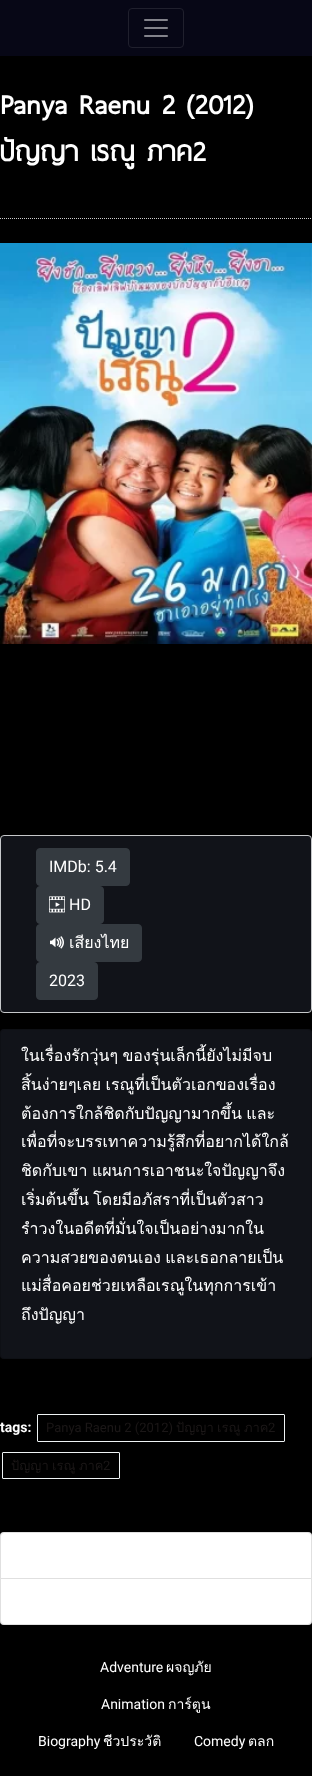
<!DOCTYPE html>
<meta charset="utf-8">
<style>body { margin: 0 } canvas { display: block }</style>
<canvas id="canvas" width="312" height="1776"></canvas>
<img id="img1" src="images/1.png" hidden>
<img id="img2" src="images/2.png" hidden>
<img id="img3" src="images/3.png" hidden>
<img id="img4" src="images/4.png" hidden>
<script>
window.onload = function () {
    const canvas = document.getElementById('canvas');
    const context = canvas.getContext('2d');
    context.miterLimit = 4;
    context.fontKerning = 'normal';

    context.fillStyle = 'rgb(0, 0, 0)';
    context.fillRect(0, 0, 312, 1776);
    context.fillStyle = 'rgb(7, 7, 22)';
    context.fillRect(0, 0, 312, 56);
    context.beginPath();
    context.roundRect(128.5, 8.5, 55, 39, 3.5);
    context.strokeStyle = 'rgb(32, 32, 45)';
    context.stroke();
    context.drawImage(document.getElementById('img1'), 144, 19, 24, 18);
    context.beginPath();
    context.moveTo(0, 218.5);
    context.lineTo(312, 218.5);
    context.strokeStyle = 'rgb(204, 204, 204)';
    context.setLineDash([1, 1]);
    context.stroke();
    context.drawImage(document.getElementById('img2'), 0, 243, 312, 401);
    context.fillStyle = 'rgb(17, 19, 25)';
    context.beginPath();
    context.roundRect(0.5, 835.5, 311, 177, 3.5);
    context.fill();
    context.strokeStyle = 'rgb(198, 200, 202)';
    context.setLineDash([]);
    context.stroke();
    context.fillStyle = 'rgb(52, 58, 64)';
    context.beginPath();
    context.roundRect(36.5, 848.5, 93, 37, 3.5);
    context.fill();
    context.strokeStyle = 'rgb(52, 58, 64)';
    context.stroke();
    context.beginPath();
    context.roundRect(36.5, 886.5, 67, 37, 3.5);
    context.fill();
    context.stroke();
    context.drawImage(document.getElementById('img3'), 49, 896, 16, 17);
    context.beginPath();
    context.roundRect(36.5, 924.5, 105, 37, 3.5);
    context.fill();
    context.stroke();
    context.drawImage(document.getElementById('img4'), 50, 936, 14, 13);
    context.beginPath();
    context.roundRect(36.5, 962.5, 61, 37, 3.5);
    context.fill();
    context.stroke();
    context.fillStyle = 'rgb(17, 19, 25)';
    context.beginPath();
    context.roundRect(0, 1029, 312, 330, 4);
    context.fill();
    context.beginPath();
    context.roundRect(0.5, 1029.5, 311, 329, 3.5);
    context.strokeStyle = 'rgba(0, 0, 0, 0.12)';
    context.stroke();
    context.beginPath();
    context.roundRect(37.5, 1414.5, 247, 27, 0.5);
    context.strokeStyle = 'rgb(238, 243, 244)';
    context.stroke();
    context.beginPath();
    context.roundRect(2.5, 1452.5, 117, 26, 0.5);
    context.stroke();
    context.fillStyle = 'rgb(255, 255, 255)';
    context.beginPath();
    context.roundRect(0, 1532, 312, 47, [4, 4, 0, 0]);
    context.fill();
    context.beginPath();
    context.roundRect(0.5, 1532.5, 311, 46, [3.5, 3.5, 0, 0]);
    context.strokeStyle = 'rgba(0, 0, 0, 0.12)';
    context.stroke();
    context.beginPath();
    context.roundRect(0, 1578, 312, 47, [0, 0, 4, 4]);
    context.fill();
    context.beginPath();
    context.roundRect(0.5, 1578.5, 311, 46, [0, 0, 3.5, 3.5]);
    context.stroke();
    context.font = 'bold 36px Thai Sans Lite';
    context.fillText('Panya Raenu 2 (2012)', 0, 114);
    context.fillText('ปัญญา เรณู ภาค2', 0, 161);
    context.font = '16px Roboto';
    context.fillText('IMDb: 5.4', 49, 872);
    context.fillText('HD', 69, 910);
    context.font = '16px Loma';
    context.fillText('เสียงไทย', 69, 948);
    context.font = '16px Roboto';
    context.fillText('2023', 49, 986);
    context.wordSpacing = '-1px';
    context.font = '16px Loma';
    context.fillText('ในเรื่องรักวุ่นๆ ของรุ่นเล็กนี้ยังไม่มีจบ', 21, 1061);
    context.fillText('สิ้นง่ายๆเลย เรณูที่เป็นตัวเอกของเรื่อง', 21, 1090);
    context.fillText('ต้องการใกล้ชิดกับปัญญามากขึ้น และ', 21, 1119);
    context.wordSpacing = '0px';
    context.fillText('เพื่อที่จะบรรเทาความรู้สึกที่อยากได้ใกล้', 21, 1147);
    context.wordSpacing = '-1px';
    context.fillText('ชิดกับเขา แผนการเอาชนะใจปัญญาจึง', 21, 1176);
    context.fillText('เริ่มต้นขึ้น โดยมีอภัสราที่เป็นตัวสาว', 21, 1205);
    context.wordSpacing = '0px';
    context.fillText('รำวงในอดีตที่มั่นใจเป็นอย่างมากใน', 21, 1234);
    context.wordSpacing = '-1px';
    context.fillText('ความสวยของตนเอง และเธอกลายเป็น', 21, 1263);
    context.wordSpacing = '0px';
    context.fillText('แม่สื่อคอยช่วยเหลือเรณูในทุกการเข้า', 21, 1291);
    context.fillText('ถึงปัญญา', 21, 1320);
    context.font = 'bold 14px Roboto';
    context.fillText('tags:', 0, 1432);
    context.font = '13px Roboto';
    context.fillStyle = 'rgb(27, 23, 23)';
    context.fillText('Panya Raenu 2 (2012)', 46, 1432);
    context.font = '13px Loma';
    context.fillText('ปัญญา', 176, 1432);
    context.fillText('เรณู', 217, 1432);
    context.fillText('ภาค', 244, 1432);
    context.font = '13px Roboto';
    context.fillText('2', 268, 1432);
    context.wordSpacing = '-1px';
    context.font = '13px Loma';
    context.fillText('ปัญญา เรณู ภาค', 11, 1470);
    context.wordSpacing = '0px';
    context.font = '13px Roboto';
    context.fillText('2', 103, 1470);
    context.font = '14px Roboto';
    context.fillStyle = 'rgb(255, 255, 255)';
    context.fillText('Adventure', 100, 1672);
    context.font = '14px Loma';
    context.fillText('ผจญภัย', 166, 1672);
    context.font = '14px Roboto';
    context.fillText('Animation', 101, 1709);
    context.font = '14px Loma';
    context.fillText('การ์ตูน', 168, 1709);
    context.font = '14px Roboto';
    context.fillText('Biography', 38, 1746);
    context.font = '14px Loma';
    context.fillText('ชีวประวัติ', 103, 1746);
    context.font = '14px Roboto';
    context.fillText('Comedy', 194, 1746);
    context.font = '14px Loma';
    context.fillText('ตลก', 248, 1746);
};
</script>
